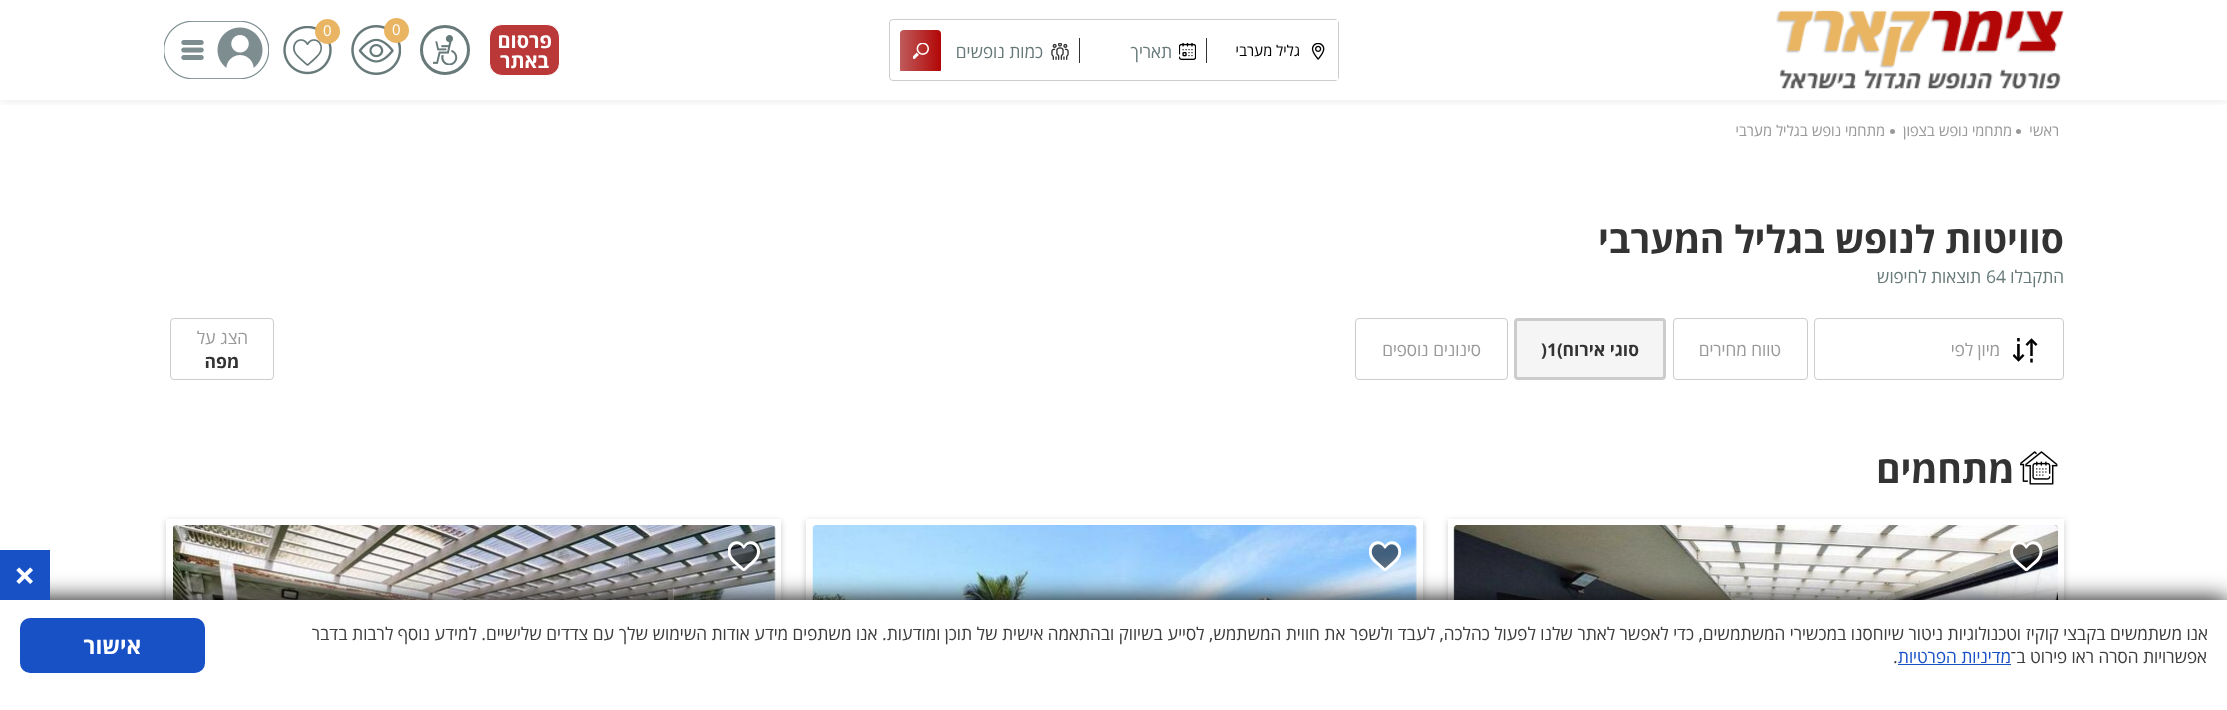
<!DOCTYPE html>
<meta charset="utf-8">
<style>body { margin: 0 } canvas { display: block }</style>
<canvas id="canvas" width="2227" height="710"></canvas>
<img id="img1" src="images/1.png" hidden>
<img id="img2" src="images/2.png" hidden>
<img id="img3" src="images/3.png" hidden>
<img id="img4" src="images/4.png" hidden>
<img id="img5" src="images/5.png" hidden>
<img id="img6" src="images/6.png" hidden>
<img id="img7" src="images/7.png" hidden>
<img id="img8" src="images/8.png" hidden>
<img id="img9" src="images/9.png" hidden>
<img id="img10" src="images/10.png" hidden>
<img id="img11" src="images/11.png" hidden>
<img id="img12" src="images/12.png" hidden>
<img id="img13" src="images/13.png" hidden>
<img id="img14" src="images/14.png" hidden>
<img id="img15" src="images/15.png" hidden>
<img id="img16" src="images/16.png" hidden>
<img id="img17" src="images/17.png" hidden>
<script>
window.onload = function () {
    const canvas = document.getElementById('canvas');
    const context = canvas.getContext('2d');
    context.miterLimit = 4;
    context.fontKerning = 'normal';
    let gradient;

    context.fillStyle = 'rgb(255, 255, 255)';
    context.fillRect(0, 0, 2227, 710);
    context.save();
    context.beginPath();
    context.rect(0, 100, 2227, 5);
    context.clip();
    context.fillStyle = 'rgba(0, 0, 0, 0.1)';
    context.filter = 'blur(6px)';
    context.beginPath();
    context.rect(0, 0, 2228, 100);
    context.fill();
    context.filter = 'none';
    context.restore();
    context.drawImage(document.getElementById('img1'), 1776, 10, 288, 80);
    context.fillStyle = 'rgb(186, 56, 56)';
    context.beginPath();
    context.roundRect(489.5, 24.5, 70, 51, 12.5);
    context.fill();
    context.strokeStyle = 'rgb(255, 255, 255)';
    context.stroke();
    context.beginPath();
    context.arc(445, 50, 23.5, 0, 2 * Math.PI);
    context.strokeStyle = 'rgb(103, 121, 121)';
    context.lineWidth = 3;
    context.stroke();
    context.drawImage(document.getElementById('img2'), 433, 35, 25, 30);
    context.drawImage(document.getElementById('img3'), 351, 25, 50, 50);
    context.fillStyle = 'rgb(233, 181, 99)';
    context.beginPath();
    context.arc(396.5, 30.5, 12.5, 0, 2 * Math.PI);
    context.fill();
    context.drawImage(document.getElementById('img4'), 283, 26, 49, 49);
    context.beginPath();
    context.arc(327.5, 31.5, 12.5, 0, 2 * Math.PI);
    context.fill();
    context.drawImage(document.getElementById('img5'), 164, 21, 105, 58);
    context.beginPath();
    context.roundRect(889.5, 19.5, 449, 61, 3.5);
    context.strokeStyle = 'rgb(204, 204, 204)';
    context.lineWidth = 1;
    context.stroke();
    context.fillStyle = 'rgb(255, 255, 255)';
    context.fillRect(1335, 20, 3, 60);
    context.drawImage(document.getElementById('img6'), 1311, 43, 14, 17);
    context.fillStyle = 'rgb(51, 51, 51)';
    context.fillRect(1206, 38, 1, 25);
    context.drawImage(document.getElementById('img7'), 1179, 43, 17, 17);
    context.fillRect(1079, 38, 1, 25);
    context.drawImage(document.getElementById('img8'), 1051, 43, 18, 17);
    context.save();
    context.beginPath();
    context.rect(899, 29, 42, 42);
    context.clip();
    gradient = context.createLinearGradient(941, 51, 900, 51);
    gradient.addColorStop(0, 'rgb(179, 6, 6)');
    gradient.addColorStop(1, 'rgb(191, 91, 91)');
    context.fillStyle = gradient;
    context.beginPath();
    context.roundRect(900, 30, 41, 43, 4);
    context.fill();
    context.restore();
    context.drawImage(document.getElementById('img9'), 913, 43, 16, 16);
    context.fillStyle = 'rgb(153, 153, 153)';
    context.beginPath();
    context.arc(2018.5, 131.5, 2.5, 0, 2 * Math.PI);
    context.fill();
    context.beginPath();
    context.arc(1892.5, 131.5, 2.5, 0, 2 * Math.PI);
    context.fill();
    context.beginPath();
    context.roundRect(1814.5, 318.5, 249, 61, 3.5);
    context.stroke();
    context.drawImage(document.getElementById('img10'), 2013, 338, 25, 25);
    context.beginPath();
    context.roundRect(1673.5, 318.5, 134, 61, 3.5);
    context.stroke();
    context.fillStyle = 'rgb(245, 245, 245)';
    context.beginPath();
    context.roundRect(1515.5, 319.5, 149, 59, 2.5);
    context.fill();
    context.lineWidth = 3;
    context.stroke();
    context.beginPath();
    context.roundRect(1355.5, 318.5, 152, 61, 3.5);
    context.lineWidth = 1;
    context.stroke();
    context.beginPath();
    context.roundRect(170.5, 318.5, 103, 61, 3.5);
    context.stroke();
    context.drawImage(document.getElementById('img11'), 2020, 451, 38, 34);
    context.save();
    context.beginPath();
    context.moveTo(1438, 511);
    context.lineTo(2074, 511);
    context.lineTo(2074, 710);
    context.lineTo(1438, 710);
    context.closePath();
    context.moveTo(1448, 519);
    context.lineTo(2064, 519);
    context.lineTo(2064, 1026);
    context.lineTo(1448, 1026);
    context.closePath();
    context.clip('evenodd');
    context.fillStyle = 'rgba(0, 0, 0, 0.2)';
    context.filter = 'blur(3px)';
    context.beginPath();
    context.rect(1448, 521, 616, 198);
    context.fill();
    context.filter = 'none';
    context.restore();
    context.fillStyle = 'rgb(102, 102, 102)';
    context.beginPath();
    context.roundRect(1454, 525, 604, 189, 4);
    context.fill();
    context.drawImage(document.getElementById('img12'), 1453, 525, 605, 75);
    context.drawImage(document.getElementById('img13'), 2010, 541, 33, 30);
    context.save();
    context.beginPath();
    context.moveTo(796, 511);
    context.lineTo(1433, 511);
    context.lineTo(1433, 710);
    context.lineTo(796, 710);
    context.closePath();
    context.moveTo(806, 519);
    context.lineTo(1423, 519);
    context.lineTo(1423, 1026);
    context.lineTo(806, 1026);
    context.closePath();
    context.clip('evenodd');
    context.fillStyle = 'rgba(0, 0, 0, 0.2)';
    context.filter = 'blur(3px)';
    context.beginPath();
    context.rect(806, 521, 617, 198);
    context.fill();
    context.filter = 'none';
    context.restore();
    context.drawImage(document.getElementById('img14'), 812, 525, 605, 75);
    context.drawImage(document.getElementById('img15'), 1369, 541, 32, 30);
    context.save();
    context.beginPath();
    context.moveTo(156, 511);
    context.lineTo(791, 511);
    context.lineTo(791, 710);
    context.lineTo(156, 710);
    context.closePath();
    context.moveTo(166, 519);
    context.lineTo(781, 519);
    context.lineTo(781, 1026);
    context.lineTo(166, 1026);
    context.closePath();
    context.clip('evenodd');
    context.fillStyle = 'rgba(0, 0, 0, 0.2)';
    context.filter = 'blur(3px)';
    context.beginPath();
    context.rect(166, 521, 615, 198);
    context.fill();
    context.filter = 'none';
    context.restore();
    context.drawImage(document.getElementById('img16'), 173, 525, 603, 75);
    context.drawImage(document.getElementById('img17'), 728, 541, 32, 30);
    context.fillStyle = 'rgb(0, 0, 0)';
    context.filter = 'blur(12.5px)';
    context.beginPath();
    context.rect(0, 600, 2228, 110);
    context.fill();
    context.filter = 'none';
    context.fillStyle = 'rgb(255, 255, 255)';
    context.fillRect(0, 600, 2227, 110);
    context.fillStyle = 'rgb(24, 81, 198)';
    context.fillRect(0, 550, 50, 50);
    context.fillRect(1898, 664, 113, 1);
    context.beginPath();
    context.roundRect(20, 618, 185, 55, 10);
    context.fill();
    context.direction = 'rtl';
    context.font = 'bold 20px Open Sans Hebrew';
    context.fillStyle = 'rgb(255, 255, 255)';
    context.fillText('פרסום', 552, 48);
    context.fillText('באתר', 549, 68);
    context.direction = 'ltr';
    context.font = '15px Open Sans Hebrew';
    context.fillText('0', 392, 35);
    context.fillText('0', 323, 36);
    context.direction = 'rtl';
    context.fillStyle = 'rgb(0, 0, 0)';
    context.fillText('גליל מערבי', 1300, 56);
    context.font = '17.5px Open Sans Hebrew';
    context.fillStyle = 'rgb(103, 121, 121)';
    context.fillText('תאריך', 1172, 58);
    context.fillText('כמות נופשים', 1043, 58);
    context.font = '15px Open Sans Hebrew';
    context.fillStyle = 'rgb(153, 153, 153)';
    context.fillText('ראשי', 2059, 136);
    context.fillText('מתחמי נופש בצפון', 2012, 136);
    context.fillText('מתחמי נופש בגליל מערבי', 1885, 136);
    context.font = 'bold 37.5px Open Sans Hebrew';
    context.fillStyle = 'rgb(51, 51, 51)';
    context.fillText('סוויטות לנופש בגליל המערבי', 2064, 253);
    context.font = '17.5px Open Sans Hebrew';
    context.fillStyle = 'rgb(103, 121, 121)';
    context.fillText('התקבלו', 2064, 283);
    context.direction = 'ltr';
    context.fillText('64', 1986, 283);
    context.direction = 'rtl';
    context.fillText('תוצאות לחיפוש', 1981, 283);
    context.fillStyle = 'rgb(153, 153, 153)';
    context.fillText('מיון לפי', 2000, 356);
    context.fillText('טווח מחירים', 1781, 356);
    context.font = 'bold 17.5px Open Sans Hebrew';
    context.fillStyle = 'rgb(51, 51, 51)';
    context.fillText('סוגי אירוח', 1639, 356);
    context.direction = 'ltr';
    context.fillText(')1(', 1541, 356);
    context.direction = 'rtl';
    context.font = '17.5px Open Sans Hebrew';
    context.fillStyle = 'rgb(153, 153, 153)';
    context.fillText('סינונים נוספים', 1481, 356);
    context.fillText('הצג על', 248, 344);
    context.font = 'bold 17.5px Open Sans Hebrew';
    context.fillStyle = 'rgb(51, 51, 51)';
    context.fillText('מפה', 239, 368);
    context.font = 'bold 37.5px Open Sans Hebrew';
    context.fillText('מתחמים', 2014, 483);
    context.direction = 'ltr';
    context.fillStyle = 'rgb(255, 255, 255)';
    context.fillText('×', 14, 589);
    context.direction = 'rtl';
    context.font = '17.5px Open Sans Hebrew';
    context.fillStyle = 'rgb(61, 61, 61)';
    context.fillText('אנו משתמשים בקבצי קוקיז וטכנולוגיות ניטור שיוחסנו במכשירי המשתמשים, כדי לאפשר לאתר שלנו לפעול כהלכה, לעבד ולשפר את חווית המשתמש, לסייע בשיווק ובהתאמה אישית של תוכן ומודעות. אנו משתפים מידע אודות השימוש שלך עם צדדים שלישיים. למידע נוסף לרבות בדבר', 2208, 640);
    context.fillText('אפשרויות הסרה ראו פירוט ב־', 2207, 663);
    context.fillStyle = 'rgb(24, 81, 198)';
    context.fillText('מדיניות הפרטיות', 2011, 663);
    context.direction = 'ltr';
    context.fillStyle = 'rgb(61, 61, 61)';
    context.fillText('.', 1893, 663);
    context.direction = 'rtl';
    context.font = 'bold 22.5px Open Sans Hebrew';
    context.fillStyle = 'rgb(255, 255, 255)';
    context.fillText('אישור', 141, 654);
};
</script>
